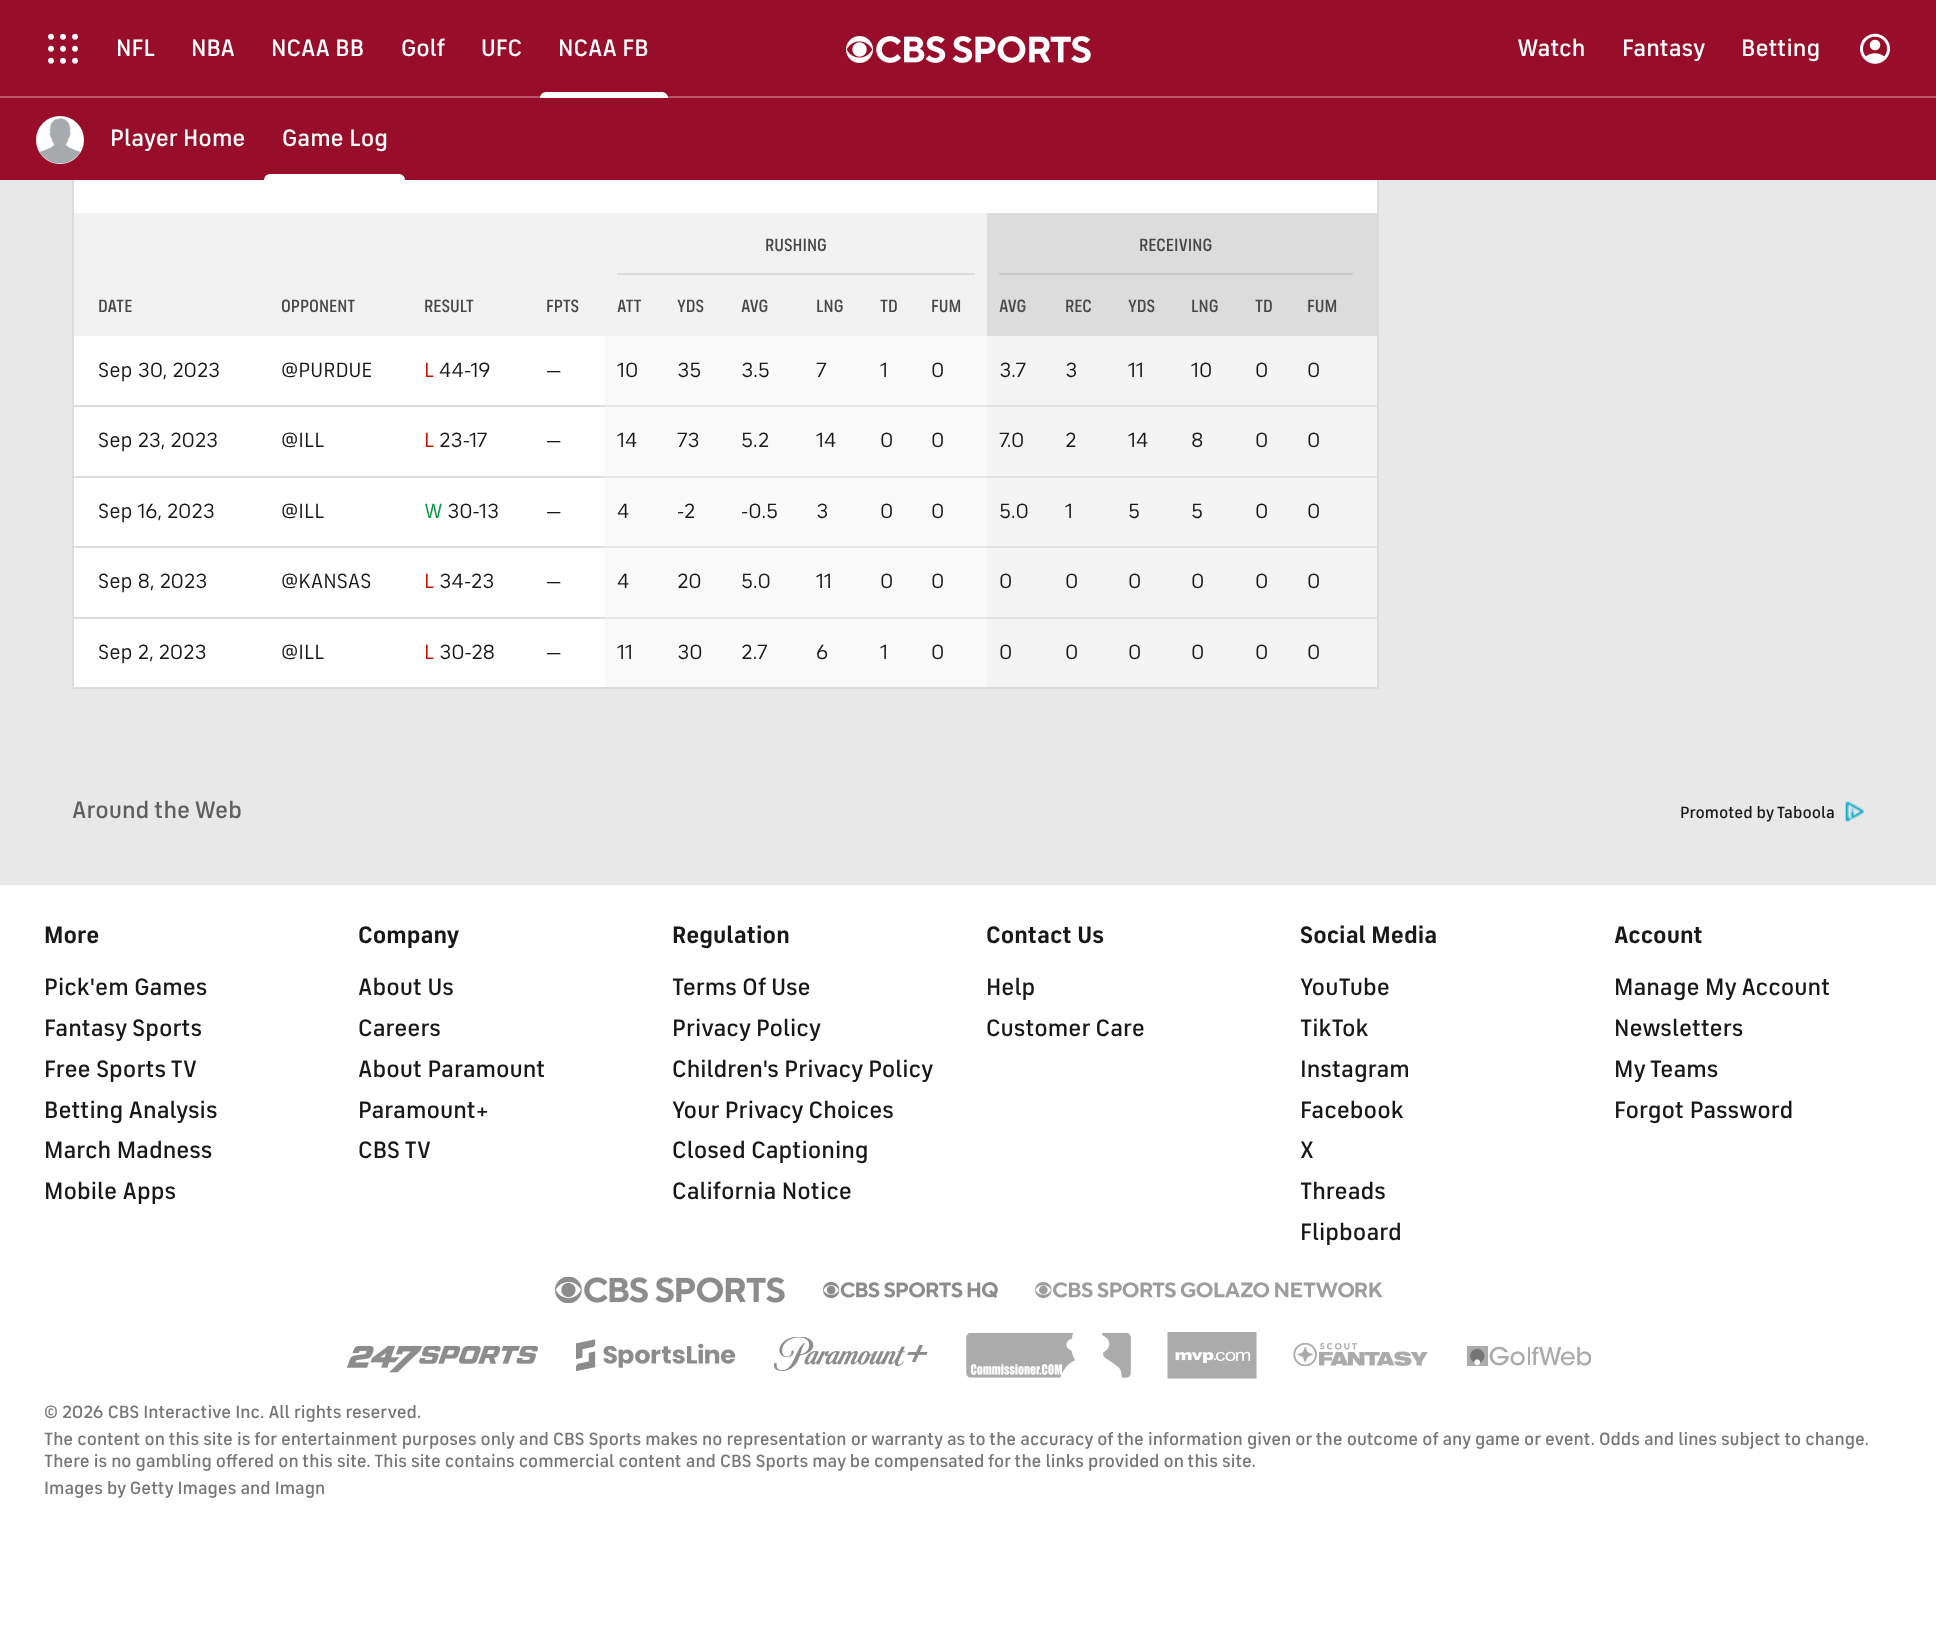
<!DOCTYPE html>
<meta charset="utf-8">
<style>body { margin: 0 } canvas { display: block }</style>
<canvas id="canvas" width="1936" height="1632"></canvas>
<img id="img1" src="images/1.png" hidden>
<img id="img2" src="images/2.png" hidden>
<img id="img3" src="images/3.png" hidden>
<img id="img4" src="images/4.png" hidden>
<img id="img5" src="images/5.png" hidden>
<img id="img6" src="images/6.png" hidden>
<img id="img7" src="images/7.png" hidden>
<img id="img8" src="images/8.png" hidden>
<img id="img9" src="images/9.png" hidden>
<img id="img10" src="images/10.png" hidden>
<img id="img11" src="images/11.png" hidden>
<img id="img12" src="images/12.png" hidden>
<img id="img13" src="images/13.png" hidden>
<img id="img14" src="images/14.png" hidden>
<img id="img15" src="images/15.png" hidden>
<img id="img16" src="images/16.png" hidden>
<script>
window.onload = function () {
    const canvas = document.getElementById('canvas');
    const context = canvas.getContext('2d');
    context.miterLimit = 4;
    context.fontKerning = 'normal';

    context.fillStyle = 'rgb(255, 255, 255)';
    context.fillRect(0, 0, 1936, 1632);
    context.fillStyle = 'rgb(152, 13, 41)';
    context.fillRect(0, 0, 1936, 96);
    context.fillStyle = 'rgb(183, 86, 105)';
    context.fillRect(0, 96, 1936, 2);
    context.drawImage(document.getElementById('img1'), 48, 33, 30, 31);
    context.fillStyle = 'rgb(255, 255, 255)';
    context.beginPath();
    context.roundRect(540, 92, 128, 6, [6, 6, 0, 0]);
    context.fill();
    context.drawImage(document.getElementById('img2'), 846, 36, 27, 27);
    context.drawImage(document.getElementById('img3'), 876, 36, 215, 27);
    context.drawImage(document.getElementById('img4'), 1860, 33, 30, 31);
    context.fillStyle = 'rgb(232, 232, 232)';
    context.fillRect(0, 180, 1936, 705);
    context.fillStyle = 'rgb(255, 255, 255)';
    context.fillRect(74, 180, 1303, 507);
    context.fillStyle = 'rgb(244, 244, 244)';
    context.fillRect(987, 619, 390, 68);
    context.fillStyle = 'rgb(249, 249, 249)';
    context.fillRect(605, 619, 382, 68);
    context.fillStyle = 'rgb(244, 244, 244)';
    context.fillRect(987, 548, 390, 69);
    context.fillStyle = 'rgb(249, 249, 249)';
    context.fillRect(605, 548, 382, 69);
    context.fillStyle = 'rgb(244, 244, 244)';
    context.fillRect(987, 478, 390, 68);
    context.fillStyle = 'rgb(249, 249, 249)';
    context.fillRect(605, 478, 382, 68);
    context.fillStyle = 'rgb(244, 244, 244)';
    context.fillRect(987, 407, 390, 69);
    context.fillStyle = 'rgb(249, 249, 249)';
    context.fillRect(605, 407, 382, 69);
    context.fillStyle = 'rgb(244, 244, 244)';
    context.fillRect(987, 336, 390, 69);
    context.fillStyle = 'rgb(249, 249, 249)';
    context.fillRect(605, 336, 382, 69);
    context.strokeStyle = 'rgb(220, 220, 220)';
    context.lineWidth = 2;
    context.strokeRect(73, 136, 1305, 552);
    context.fillStyle = 'rgb(152, 13, 41)';
    context.fillRect(0, 98, 1936, 82);
    context.fillStyle = 'rgb(255, 255, 255)';
    context.beginPath();
    context.arc(60, 140, 24, 0, 2 * Math.PI);
    context.fill();
    context.drawImage(document.getElementById('img5'), 39, 118, 42, 46);
    context.beginPath();
    context.roundRect(264, 174, 141, 6, [6, 6, 0, 0]);
    context.fill();
    context.fillStyle = 'rgb(242, 242, 242)';
    context.fillRect(74, 213, 913, 123);
    context.fillStyle = 'rgb(220, 220, 220)';
    context.fillRect(617, 273, 358, 2);
    context.fillRect(987, 213, 390, 62);
    context.fillStyle = 'rgb(200, 200, 200)';
    context.fillRect(999, 273, 354, 2);
    context.fillStyle = 'rgb(220, 220, 220)';
    context.fillRect(987, 275, 390, 61);
    context.fillRect(74, 405, 531, 2);
    context.fillStyle = 'rgb(226, 226, 226)';
    context.fillRect(987, 405, 390, 2);
    context.fillStyle = 'rgb(231, 231, 231)';
    context.fillRect(605, 405, 382, 2);
    context.fillStyle = 'rgb(220, 220, 220)';
    context.fillRect(74, 476, 531, 2);
    context.fillStyle = 'rgb(226, 226, 226)';
    context.fillRect(987, 477, 390, 1);
    context.fillStyle = 'rgb(231, 231, 231)';
    context.fillRect(605, 477, 382, 1);
    context.fillStyle = 'rgb(226, 226, 226)';
    context.fillRect(987, 476, 390, 1);
    context.fillStyle = 'rgb(231, 231, 231)';
    context.fillRect(605, 476, 382, 1);
    context.fillStyle = 'rgb(220, 220, 220)';
    context.fillRect(74, 546, 531, 2);
    context.fillStyle = 'rgb(226, 226, 226)';
    context.fillRect(987, 546, 390, 2);
    context.fillStyle = 'rgb(231, 231, 231)';
    context.fillRect(605, 546, 382, 2);
    context.fillStyle = 'rgb(220, 220, 220)';
    context.fillRect(74, 617, 531, 2);
    context.fillStyle = 'rgb(226, 226, 226)';
    context.fillRect(987, 618, 390, 1);
    context.fillStyle = 'rgb(231, 231, 231)';
    context.fillRect(605, 618, 382, 1);
    context.fillStyle = 'rgb(226, 226, 226)';
    context.fillRect(987, 617, 390, 1);
    context.fillStyle = 'rgb(231, 231, 231)';
    context.fillRect(605, 617, 382, 1);
    context.drawImage(document.getElementById('img6'), 1845, 801, 19, 21);
    context.drawImage(document.getElementById('img7'), 555, 1277, 230, 26);
    context.drawImage(document.getElementById('img8'), 823, 1282, 175, 16);
    context.drawImage(document.getElementById('img9'), 1035, 1282, 348, 17);
    context.drawImage(document.getElementById('img10'), 347, 1345, 191, 28);
    context.drawImage(document.getElementById('img11'), 576, 1339, 160, 33);
    context.drawImage(document.getElementById('img12'), 773, 1337, 155, 34);
    context.drawImage(document.getElementById('img13'), 966, 1332, 165, 46);
    context.drawImage(document.getElementById('img14'), 1167, 1332, 90, 47);
    context.drawImage(document.getElementById('img15'), 1293, 1343, 135, 23);
    context.drawImage(document.getElementById('img16'), 1467, 1346, 124, 20);
    context.font = '500 24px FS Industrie';
    context.fillStyle = 'rgb(255, 255, 255)';
    context.fillText('NFL', 116, 56);
    context.fillText('NBA', 191, 56);
    context.fillText('NCAA BB', 271, 56);
    context.fillText('Golf', 401, 56);
    context.fillText('UFC', 481, 56);
    context.fillText('NCAA FB', 558, 56);
    context.fillText('Watch', 1517, 56);
    context.fillText('Fantasy', 1622, 56);
    context.fillText('Betting', 1741, 56);
    context.fillText('Player Home', 110, 146);
    context.fillText('Game Log', 282, 146);
    context.font = '500 18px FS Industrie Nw';
    context.fillStyle = 'rgb(72, 72, 72)';
    context.fillText('RUSHING', 765, 251);
    context.fillText('RECEIVING', 1139, 251);
    context.fillText('DATE', 98, 312);
    context.fillText('OPPONENT', 281, 312);
    context.fillText('RESULT', 424, 312);
    context.fillText('FPTS', 546, 312);
    context.fillText('ATT', 617, 312);
    context.fillText('YDS', 677, 312);
    context.fillText('AVG', 741, 312);
    context.fillText('LNG', 816, 312);
    context.fillText('TD', 880, 312);
    context.fillText('FUM', 931, 312);
    context.fillText('AVG', 999, 312);
    context.fillText('REC', 1065, 312);
    context.fillText('YDS', 1128, 312);
    context.fillText('LNG', 1191, 312);
    context.fillText('TD', 1255, 312);
    context.fillText('FUM', 1307, 312);
    context.font = '21px FS Industrie';
    context.fillStyle = 'rgb(24, 24, 24)';
    context.fillText('Sep 30, 2023', 98, 377);
    context.fillText('@PURDUE', 281, 377);
    context.fillStyle = 'rgb(204, 14, 0)';
    context.fillText('L', 424, 377);
    context.fillStyle = 'rgb(24, 24, 24)';
    context.fillText('44-19', 439, 377);
    context.fillText('—', 546, 377);
    context.fillText('10', 617, 377);
    context.fillText('35', 677, 377);
    context.fillText('3.5', 741, 377);
    context.fillText('7', 816, 377);
    context.fillText('1', 880, 377);
    context.fillText('0', 931, 377);
    context.fillText('3.7', 999, 377);
    context.fillText('3', 1065, 377);
    context.fillText('11', 1128, 377);
    context.fillText('10', 1191, 377);
    context.fillText('0', 1255, 377);
    context.fillText('0', 1307, 377);
    context.fillText('Sep 23, 2023', 98, 447);
    context.fillText('@ILL', 281, 447);
    context.fillStyle = 'rgb(204, 14, 0)';
    context.fillText('L', 424, 447);
    context.fillStyle = 'rgb(24, 24, 24)';
    context.fillText('23-17', 439, 447);
    context.fillText('—', 546, 447);
    context.fillText('14', 617, 447);
    context.fillText('73', 677, 447);
    context.fillText('5.2', 741, 447);
    context.fillText('14', 816, 447);
    context.fillText('0', 880, 447);
    context.fillText('0', 931, 447);
    context.fillText('7.0', 999, 447);
    context.fillText('2', 1065, 447);
    context.fillText('14', 1128, 447);
    context.fillText('8', 1191, 447);
    context.fillText('0', 1255, 447);
    context.fillText('0', 1307, 447);
    context.fillText('Sep 16, 2023', 98, 518);
    context.fillText('@ILL', 281, 518);
    context.fillStyle = 'rgb(5, 150, 70)';
    context.fillText('W', 424, 518);
    context.fillStyle = 'rgb(24, 24, 24)';
    context.fillText('30-13', 447, 518);
    context.fillText('—', 546, 518);
    context.fillText('4', 617, 518);
    context.fillText('-2', 677, 518);
    context.fillText('-0.5', 741, 518);
    context.fillText('3', 816, 518);
    context.fillText('0', 880, 518);
    context.fillText('0', 931, 518);
    context.fillText('5.0', 999, 518);
    context.fillText('1', 1065, 518);
    context.fillText('5', 1128, 518);
    context.fillText('5', 1191, 518);
    context.fillText('0', 1255, 518);
    context.fillText('0', 1307, 518);
    context.fillText('Sep 8, 2023', 98, 588);
    context.fillText('@KANSAS', 281, 588);
    context.fillStyle = 'rgb(204, 14, 0)';
    context.fillText('L', 424, 588);
    context.fillStyle = 'rgb(24, 24, 24)';
    context.fillText('34-23', 439, 588);
    context.fillText('—', 546, 588);
    context.fillText('4', 617, 588);
    context.fillText('20', 677, 588);
    context.fillText('5.0', 741, 588);
    context.fillText('11', 816, 588);
    context.fillText('0', 880, 588);
    context.fillText('0', 931, 588);
    context.fillText('0', 999, 588);
    context.fillText('0', 1065, 588);
    context.fillText('0', 1128, 588);
    context.fillText('0', 1191, 588);
    context.fillText('0', 1255, 588);
    context.fillText('0', 1307, 588);
    context.fillText('Sep 2, 2023', 98, 659);
    context.fillText('@ILL', 281, 659);
    context.fillStyle = 'rgb(204, 14, 0)';
    context.fillText('L', 424, 659);
    context.fillStyle = 'rgb(24, 24, 24)';
    context.fillText('30-28', 439, 659);
    context.fillText('—', 546, 659);
    context.fillText('11', 617, 659);
    context.fillText('30', 677, 659);
    context.fillText('2.7', 741, 659);
    context.fillText('6', 816, 659);
    context.fillText('1', 880, 659);
    context.fillText('0', 931, 659);
    context.fillText('0', 999, 659);
    context.fillText('0', 1065, 659);
    context.fillText('0', 1128, 659);
    context.fillText('0', 1191, 659);
    context.fillText('0', 1255, 659);
    context.fillText('0', 1307, 659);
    context.font = '500 24px FS Industrie';
    context.fillStyle = 'rgb(95, 95, 95)';
    context.fillText('Around the Web', 72, 818);
    context.font = '500 16.5px FS Industrie';
    context.fillStyle = 'rgb(24, 24, 24)';
    context.fillText('Promoted by Taboola', 1680, 818);
    context.font = 'bold 24px FS Industrie';
    context.fillText('More', 44, 943);
    context.font = '500 24px FS Industrie';
    context.fillText('Pick\'em Games', 44, 995);
    context.fillText('Fantasy Sports', 44, 1036);
    context.fillText('Free Sports TV', 44, 1077);
    context.fillText('Betting Analysis', 44, 1118);
    context.fillText('March Madness', 44, 1158);
    context.fillText('Mobile Apps', 44, 1199);
    context.font = 'bold 24px FS Industrie';
    context.fillText('Company', 358, 943);
    context.font = '500 24px FS Industrie';
    context.fillText('About Us', 358, 995);
    context.fillText('Careers', 358, 1036);
    context.fillText('About Paramount', 358, 1077);
    context.fillText('Paramount+', 358, 1118);
    context.fillText('CBS TV', 358, 1158);
    context.font = 'bold 24px FS Industrie';
    context.fillText('Regulation', 672, 943);
    context.font = '500 24px FS Industrie';
    context.fillText('Terms Of Use', 672, 995);
    context.fillText('Privacy Policy', 672, 1036);
    context.fillText('Children\'s Privacy Policy', 672, 1077);
    context.fillText('Your Privacy Choices', 672, 1118);
    context.fillText('Closed Captioning', 672, 1158);
    context.fillText('California Notice', 672, 1199);
    context.font = 'bold 24px FS Industrie';
    context.fillText('Contact Us', 986, 943);
    context.font = '500 24px FS Industrie';
    context.fillText('Help', 986, 995);
    context.fillText('Customer Care', 986, 1036);
    context.font = 'bold 24px FS Industrie';
    context.fillText('Social Media', 1300, 943);
    context.font = '500 24px FS Industrie';
    context.fillText('YouTube', 1300, 995);
    context.fillText('TikTok', 1300, 1036);
    context.fillText('Instagram', 1300, 1077);
    context.fillText('Facebook', 1300, 1118);
    context.fillText('X', 1300, 1158);
    context.fillText('Threads', 1300, 1199);
    context.fillText('Flipboard', 1300, 1240);
    context.font = 'bold 24px FS Industrie';
    context.fillText('Account', 1614, 943);
    context.font = '500 24px FS Industrie';
    context.fillText('Manage My Account', 1614, 995);
    context.fillText('Newsletters', 1614, 1036);
    context.fillText('My Teams', 1614, 1077);
    context.fillText('Forgot Password', 1614, 1118);
    context.font = '500 18px FS Industrie';
    context.fillStyle = 'rgb(118, 118, 118)';
    context.fillText('© 2026 CBS Interactive Inc. All rights reserved.', 44, 1418);
    context.fillText('The content on this site is for entertainment purposes only and CBS Sports makes no representation or warranty as to the accuracy of the information given or the outcome of any game or event. Odds and lines subject to change.', 44, 1445);
    context.fillText('There is no gambling offered on this site. This site contains commercial content and CBS Sports may be compensated for the links provided on this site.', 44, 1467);
    context.fillText('Images by Getty Images and Imagn', 44, 1494);
};
</script>
